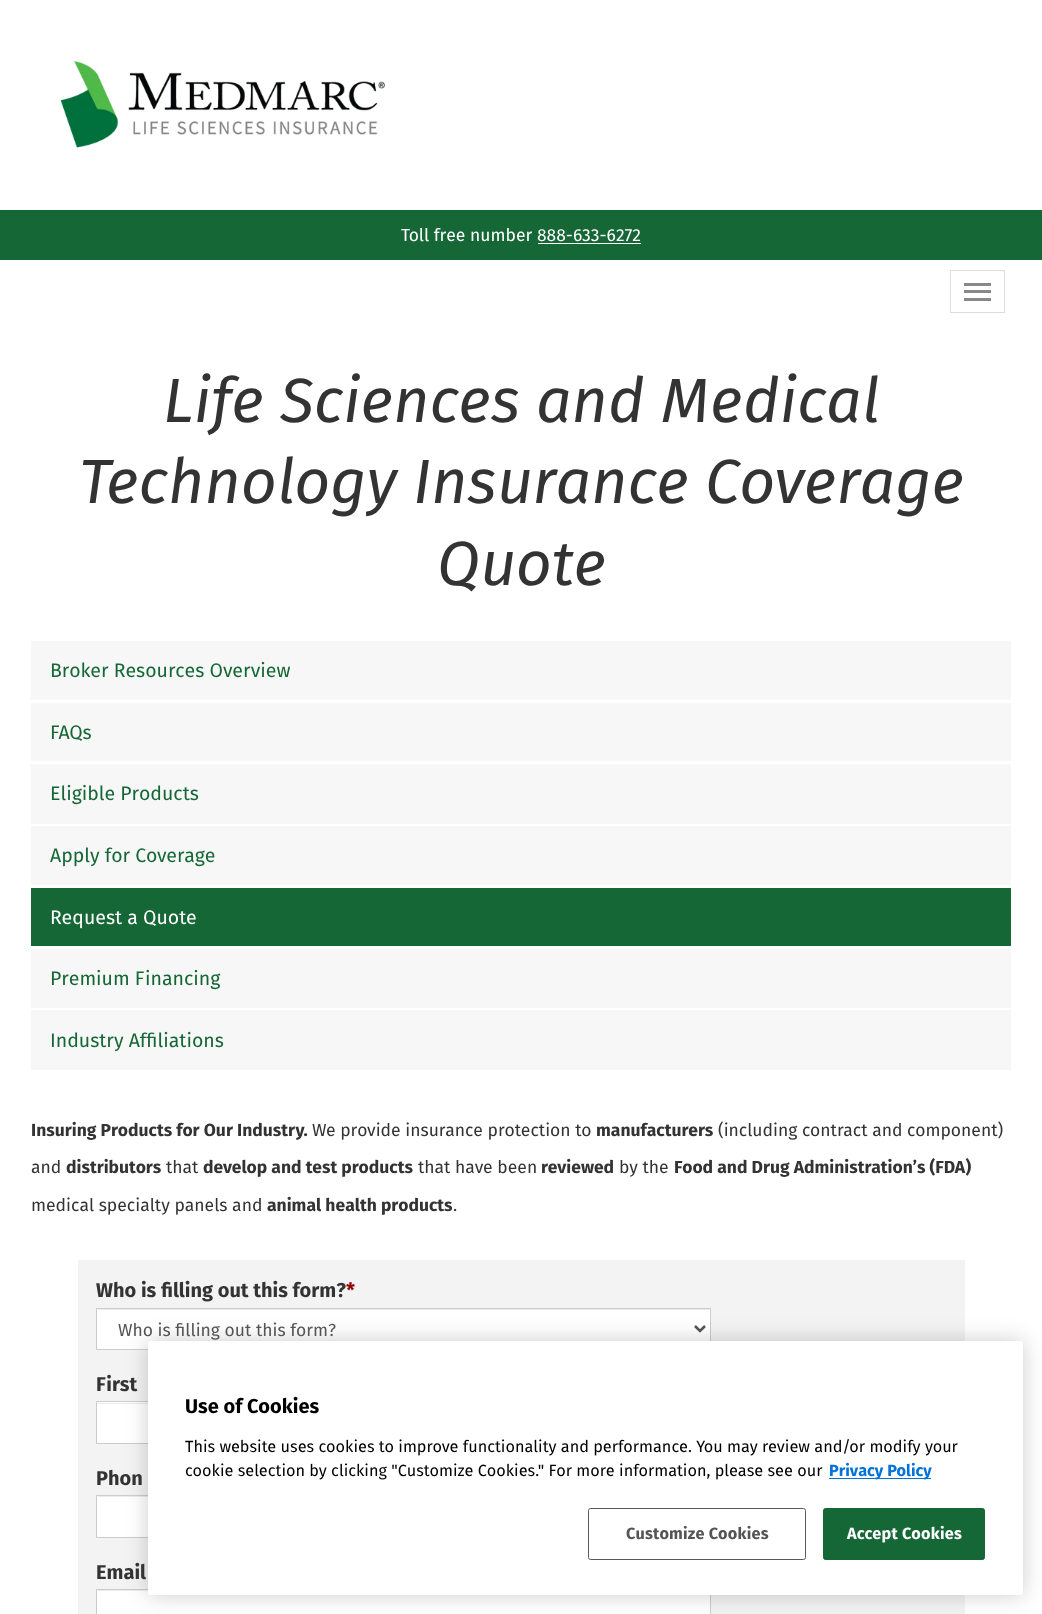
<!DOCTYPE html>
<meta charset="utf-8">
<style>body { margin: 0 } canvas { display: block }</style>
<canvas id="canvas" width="1042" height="1614"></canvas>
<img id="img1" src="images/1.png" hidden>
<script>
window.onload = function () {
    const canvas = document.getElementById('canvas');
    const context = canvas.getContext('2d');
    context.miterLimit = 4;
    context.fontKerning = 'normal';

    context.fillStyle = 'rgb(255, 255, 255)';
    context.fillRect(0, 0, 1042, 1614);
    context.drawImage(document.getElementById('img1'), 60, 60, 325, 88);
    context.fillStyle = 'rgb(21, 103, 54)';
    context.fillRect(0, 210, 1042, 50);
    context.fillStyle = 'rgb(255, 255, 255)';
    context.fillRect(538, 243, 103, 1);
    context.strokeStyle = 'rgb(221, 221, 221)';
    context.strokeRect(950.5, 270.5, 54, 42);
    context.fillStyle = 'rgb(136, 136, 136)';
    context.fillRect(964, 283, 27, 3);
    context.fillRect(964, 290, 27, 3);
    context.fillRect(964, 298, 27, 3);
    context.fillStyle = 'rgb(247, 247, 247)';
    context.fillRect(31, 641, 980, 59);
    context.fillRect(31, 703, 980, 58);
    context.fillRect(31, 764, 980, 60);
    context.fillRect(31, 826, 980, 59);
    context.fillStyle = 'rgb(21, 103, 54)';
    context.fillRect(31, 888, 980, 58);
    context.fillStyle = 'rgb(247, 247, 247)';
    context.fillRect(31, 949, 980, 59);
    context.fillRect(31, 1010, 980, 60);
    context.fillStyle = 'rgb(243, 243, 243)';
    context.fillRect(78, 1260, 887, 354);
    context.fillStyle = 'rgb(255, 255, 255)';
    context.fillRect(97, 1309, 613, 40);
    context.fillStyle = 'rgb(235, 235, 235)';
    context.fillRect(98, 1309, 612, 1);
    context.strokeStyle = 'rgb(204, 204, 204)';
    context.strokeRect(96.5, 1308.5, 614, 41);
    context.beginPath();
    context.moveTo(695, 1326);
    context.lineTo(700, 1331);
    context.lineTo(705, 1326);
    context.strokeStyle = 'rgb(85, 85, 85)';
    context.lineWidth = 2.5;
    context.stroke();
    context.fillStyle = 'rgb(255, 255, 255)';
    context.fillRect(97, 1402, 51, 41);
    context.fillStyle = 'rgb(235, 235, 235)';
    context.fillRect(98, 1403, 50, 1);
    context.strokeStyle = 'rgb(204, 204, 204)';
    context.lineWidth = 1;
    context.strokeRect(96.5, 1401.5, 302, 42);
    context.fillStyle = 'rgb(255, 255, 255)';
    context.fillRect(97, 1496, 51, 41);
    context.fillStyle = 'rgb(235, 235, 235)';
    context.fillRect(98, 1496, 50, 1);
    context.strokeRect(96.5, 1495.5, 614, 42);
    context.fillStyle = 'rgb(255, 255, 255)';
    context.fillRect(97, 1590, 613, 24);
    context.fillStyle = 'rgb(235, 235, 235)';
    context.fillRect(98, 1590, 50, 1);
    context.strokeRect(96.5, 1589.5, 614, 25);
    context.fillStyle = 'rgba(0, 0, 0, 0.2)';
    context.filter = 'blur(11px)';
    context.beginPath();
    context.roundRect(148, 1341, 875, 254, 3);
    context.fill();
    context.filter = 'none';
    context.fillStyle = 'rgb(255, 255, 255)';
    context.beginPath();
    context.roundRect(148, 1341, 875, 254, 3);
    context.fill();
    context.fillStyle = 'rgb(0, 114, 218)';
    context.fillRect(829, 1478, 102, 1);
    context.beginPath();
    context.roundRect(588.5, 1508.5, 217, 51, 2);
    context.strokeStyle = 'rgb(90, 90, 90)';
    context.stroke();
    context.fillStyle = 'rgb(21, 103, 54)';
    context.beginPath();
    context.roundRect(823.5, 1508.5, 161, 51, 2);
    context.fill();
    context.strokeStyle = 'rgb(21, 103, 54)';
    context.stroke();
    context.font = '17.5px Fira Sans';
    context.fillStyle = 'rgb(255, 255, 255)';
    context.fillText('Toll free number 888-633-6272', 401, 241);
    context.font = 'italic 62.5px Fira Sans';
    context.fillStyle = 'rgb(51, 51, 51)';
    context.fillText('Life Sciences and Medical', 163, 422);
    context.fillText('Technology Insurance Coverage', 79, 503);
    context.fillText('Quote', 437, 585);
    context.font = '19.5px Fira Sans';
    context.fillStyle = 'rgb(21, 103, 54)';
    context.fillText('Broker Resources Overview', 50, 677);
    context.fillText('FAQs', 50, 739);
    context.fillText('Eligible Products', 50, 800);
    context.fillText('Apply for Coverage', 50, 862);
    context.fillStyle = 'rgb(255, 255, 255)';
    context.fillText('Request a Quote', 50, 924);
    context.fillStyle = 'rgb(21, 103, 54)';
    context.fillText('Premium Financing', 50, 985);
    context.fillText('Industry Affiliations', 50, 1047);
    context.font = 'bold 17.5px Fira Sans';
    context.fillStyle = 'rgb(51, 51, 51)';
    context.fillText('Insuring Products for Our Industry.', 31, 1136);
    context.font = '17.5px Fira Sans';
    context.fillText('We provide insurance protection to', 312, 1136);
    context.font = 'bold 17.5px Fira Sans';
    context.fillText('manufacturers', 596, 1136);
    context.font = '17.5px Fira Sans';
    context.fillText('(including contract and component)', 718, 1136);
    context.fillText('and', 31, 1173);
    context.font = 'bold 17.5px Fira Sans';
    context.fillText('distributors', 66, 1173);
    context.font = '17.5px Fira Sans';
    context.fillText('that', 166, 1173);
    context.font = 'bold 17.5px Fira Sans';
    context.fillText('develop and test products', 203, 1173);
    context.font = '17.5px Fira Sans';
    context.fillText('that have been', 418, 1173);
    context.font = 'bold 17.5px Fira Sans';
    context.fillText('reviewed', 541, 1173);
    context.font = '17.5px Fira Sans';
    context.fillText('by the', 619, 1173);
    context.font = 'bold 17.5px Fira Sans';
    context.fillText('Food and Drug Administration’s (FDA)', 674, 1173);
    context.font = '17.5px Fira Sans';
    context.fillText('medical specialty panels and', 31, 1211);
    context.font = 'bold 17.5px Fira Sans';
    context.fillText('animal health products', 267, 1211);
    context.font = '17.5px Fira Sans';
    context.fillText('.', 453, 1211);
    context.font = 'bold 20px Fira Sans';
    context.fillText('Who is filling out this form?', 96, 1297);
    context.fillStyle = 'rgb(146, 0, 0)';
    context.fillText('*', 346, 1297);
    context.font = '17.5px Fira Sans';
    context.fillStyle = 'rgb(85, 85, 85)';
    context.fillText('Who is filling out this form?', 118, 1336);
    context.font = 'bold 20px Fira Sans';
    context.fillStyle = 'rgb(51, 51, 51)';
    context.fillText('First', 96, 1391);
    context.wordSpacing = '1px';
    context.fillText('Phon', 96, 1485);
    context.wordSpacing = '0px';
    context.fillText('Email', 96, 1579);
    context.fillStyle = 'rgb(0, 0, 0)';
    context.fillText('Use of Cookies', 185, 1413);
    context.font = '16.25px Fira Sans';
    context.fillText('This website uses cookies to improve functionality and performance. You may review and/or modify your', 185, 1452);
    context.fillText('cookie selection by clicking "Customize Cookies." For more information, please see our', 185, 1476);
    context.font = 'bold 16.25px Fira Sans';
    context.fillStyle = 'rgb(0, 114, 218)';
    context.fillText('Privacy Policy', 829, 1476);
    context.letterSpacing = '0.2px';
    context.fillStyle = 'rgb(85, 85, 85)';
    context.fillText('Customize Cookies', 626, 1539);
    context.fillStyle = 'rgb(255, 255, 255)';
    context.fillText('Accept Cookies', 847, 1539);
};
</script>
